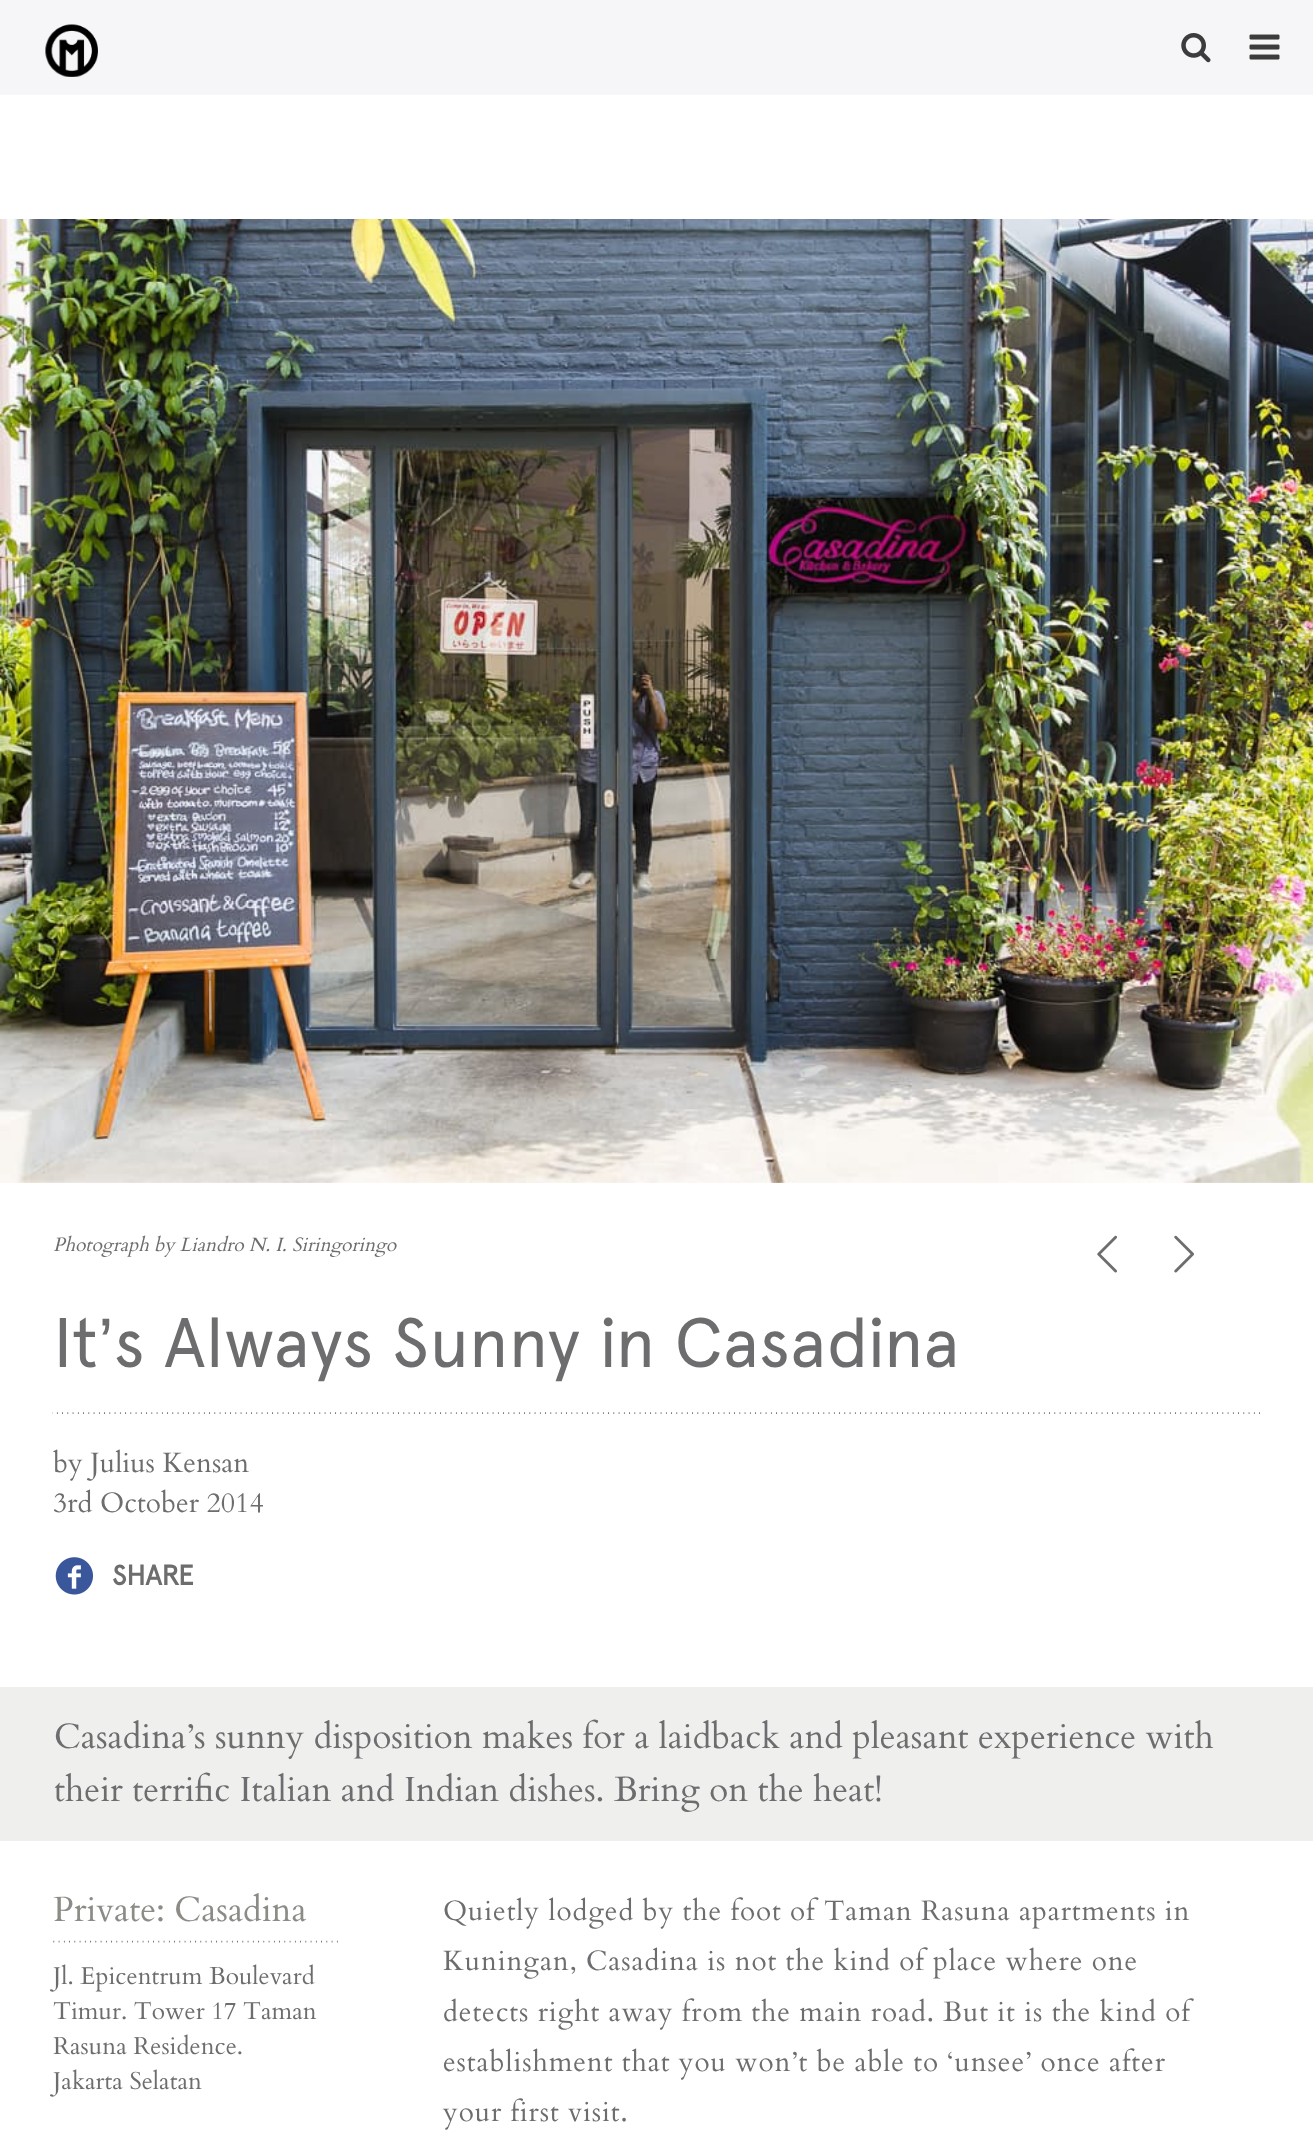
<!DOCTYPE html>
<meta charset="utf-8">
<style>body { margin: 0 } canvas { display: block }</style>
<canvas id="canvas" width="1313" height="2132"></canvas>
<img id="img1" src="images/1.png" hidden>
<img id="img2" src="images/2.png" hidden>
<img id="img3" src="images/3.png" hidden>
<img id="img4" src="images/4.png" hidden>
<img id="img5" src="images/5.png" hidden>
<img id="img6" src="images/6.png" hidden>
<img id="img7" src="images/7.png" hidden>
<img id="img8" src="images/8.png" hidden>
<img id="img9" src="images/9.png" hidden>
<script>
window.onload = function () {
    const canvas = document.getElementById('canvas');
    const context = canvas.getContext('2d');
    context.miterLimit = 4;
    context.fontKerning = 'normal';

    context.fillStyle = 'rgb(255, 255, 255)';
    context.fillRect(0, 0, 1313, 2132);
    context.fillStyle = 'rgb(246, 245, 247)';
    context.fillRect(0, 0, 1313, 95);
    context.drawImage(document.getElementById('img1'), 45, 24, 53, 53);
    context.drawImage(document.getElementById('img2'), 1249, 34, 31, 26);
    context.drawImage(document.getElementById('img3'), 1181, 33, 30, 30);
    context.drawImage(document.getElementById('img4'), 0, 219, 1313, 964);
    context.drawImage(document.getElementById('img5'), 1097, 1235, 20, 38);
    context.drawImage(document.getElementById('img6'), 1174, 1235, 20, 38);
    context.drawImage(document.getElementById('img7'), 52, 1412, 1208, 2);
    context.drawImage(document.getElementById('img8'), 55, 1557, 38, 38);
    context.fillStyle = 'rgb(239, 239, 238)';
    context.fillRect(0, 1687, 1313, 154);
    context.drawImage(document.getElementById('img9'), 53, 1940, 285, 3);
    context.font = 'italic 19.25px Cardo';
    context.fillStyle = 'rgb(109, 109, 112)';
    context.fillText('Photograph by Liandro N. I. Siringoringo', 53, 1251);
    context.font = '70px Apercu';
    context.fillText('It', 53, 1367);
    context.font = '70px Liberation Sans';
    context.fillText('’', 98, 1367);
    context.font = '70px Apercu';
    context.fillText('s Always Sunny in Casadina', 113, 1367);
    context.font = '28px Cardo';
    context.fillText('by Julius Kensan', 53, 1472);
    context.fillText('3rd October 2014', 53, 1512);
    context.font = 'bold 28px Apercu';
    context.fillText('SHARE', 112, 1585);
    context.font = '35px Cardo';
    context.fillText('Casadina’s sunny disposition makes for a laidback and pleasant experience with', 54, 1748);
    context.fillText('their terrific Italian and Indian dishes. Bring on the heat!', 54, 1801);
    context.fillStyle = 'rgb(140, 139, 134)';
    context.fillText('Private: Casadina', 53, 1921);
    context.font = '24.5px Cardo';
    context.fillStyle = 'rgb(109, 109, 112)';
    context.fillText('Jl. Epicentrum Boulevard', 53, 1984);
    context.fillText('Timur. Tower 17 Taman', 53, 2019);
    context.fillText('Rasuna Residence.', 53, 2054);
    context.fillText('Jakarta Selatan', 53, 2089);
    context.letterSpacing = '0.88px';
    context.font = '28px Cardo';
    context.fillText('Quietly lodged by the foot of Taman Rasuna apartments in', 443, 1920);
    context.fillText('Kuningan, Casadina is not the kind of place where one', 443, 1970);
    context.fillText('detects right away from the main road. But it is the kind of', 443, 2021);
    context.fillText('establishment that you won’t be able to ‘unsee’ once after', 443, 2071);
    context.fillText('your first visit.', 443, 2121);
};
</script>
